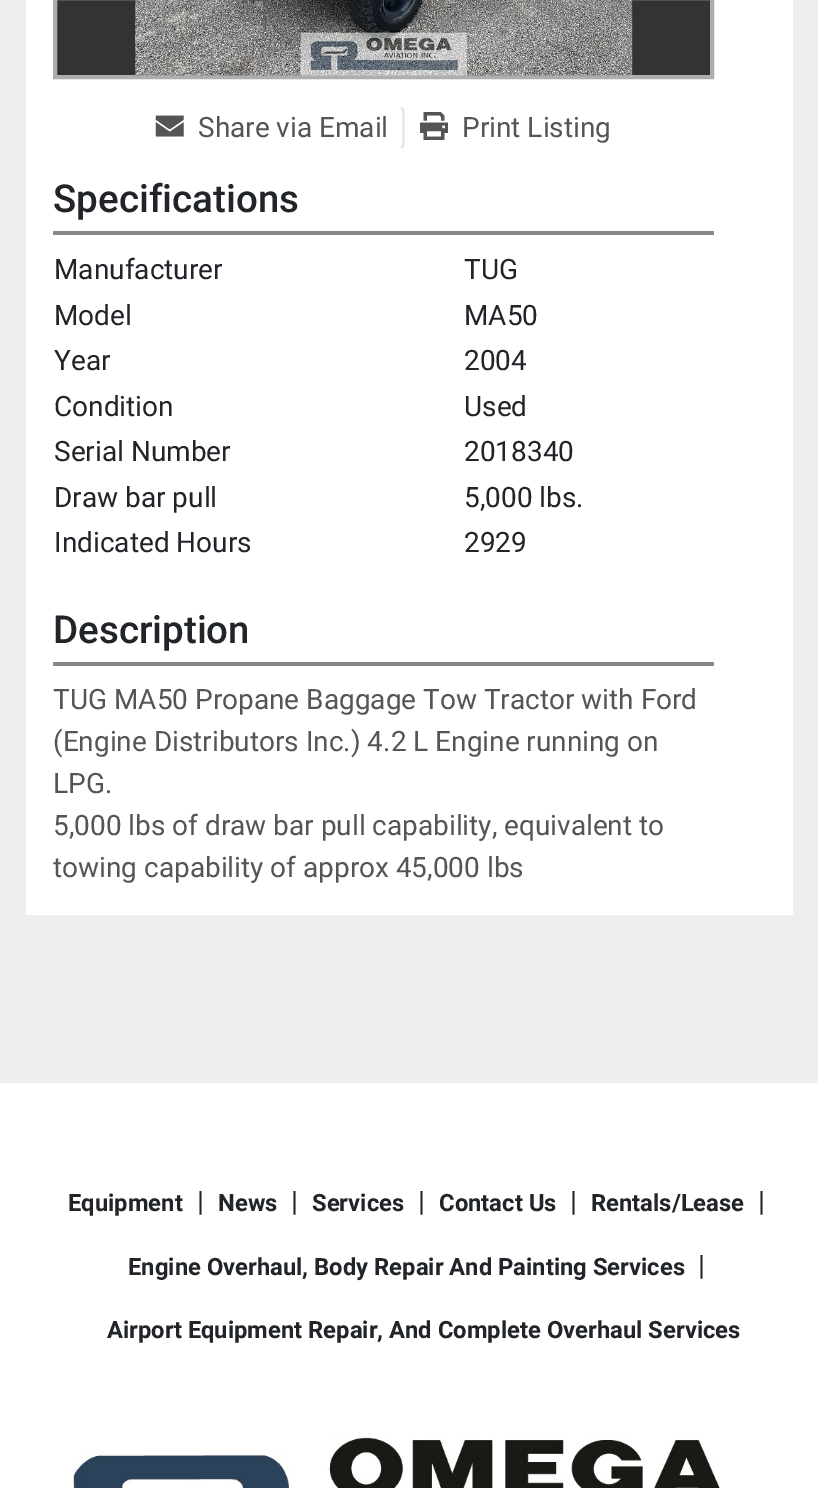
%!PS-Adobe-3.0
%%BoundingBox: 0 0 818 1488
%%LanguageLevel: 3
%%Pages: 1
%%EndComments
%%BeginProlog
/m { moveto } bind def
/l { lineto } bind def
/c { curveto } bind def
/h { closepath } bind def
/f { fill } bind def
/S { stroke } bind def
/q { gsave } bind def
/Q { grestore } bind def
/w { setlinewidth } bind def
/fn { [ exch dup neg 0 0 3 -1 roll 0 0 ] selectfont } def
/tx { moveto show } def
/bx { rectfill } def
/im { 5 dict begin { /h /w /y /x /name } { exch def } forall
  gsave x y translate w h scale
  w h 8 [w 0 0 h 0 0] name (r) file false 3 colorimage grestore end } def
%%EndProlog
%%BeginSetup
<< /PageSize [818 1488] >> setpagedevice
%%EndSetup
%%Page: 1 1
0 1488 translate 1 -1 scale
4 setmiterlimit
0.933 setgray
0 0 818 1488 bx
1 setgray
26 0 767 915 bx
0.2 setgray
55 -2 m 712 -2 l 712 77 l 55 77 l h q f Q
0.682 setgray
4 w
S
(image0.raw) 135 0 498 76 im
0.871 0.886 0.902 setrgbcolor
1.8 w
401.5 107.5 m 402.5 109 403.5 110.5 403.5 112 c 403.5 143.5 l 403.5 145 402.5 146.5 401.5 148 c S
(image1.raw) 155 115 29 22 im
/Roboto-Regular 28 fn
0.333 setgray
(Share via Email) 198 137 tx
(image2.raw) 420 112 28 28 im
(Print Listing) 462 137 tx
0.533 setgray
53 231 661 4 bx
/Roboto-Medium 38.5 fn
0.129 0.145 0.161 setrgbcolor
(Specifications) 53 212 tx
/Roboto-Regular 28 fn
(Manufacturer) 54 279 tx
(TUG) 464 279 tx
(Model) 54 325 tx
(MA50) 464 325 tx
(Year) 54 370 tx
(2004) 464 370 tx
(Condition) 54 416 tx
(Used) 464 416 tx
(Serial Number) 54 461 tx
(2018340) 464 461 tx
(Draw bar pull) 54 507 tx
(5,000 lbs.) 464 507 tx
(Indicated Hours) 54 552 tx
(2929) 464 552 tx
0.533 setgray
53 662 661 4 bx
/Roboto-Medium 38.5 fn
0.129 0.145 0.161 setrgbcolor
(Description) 53 643 tx
/Roboto-Regular 28 fn
0.333 setgray
(TUG MA50 Propane Baggage Tow Tractor with Ford) 53 709 tx
(\(Engine Distributors Inc.\) 4.2 L Engine running on) 53 751 tx
(LPG.) 53 793 tx
(5,000 lbs of draw bar pull capability, equivalent to) 53 835 tx
(towing capability of approx 45,000 lbs) 53 877 tx
1 setgray
0 1083 818 405 bx
/Roboto-Bold 23.8 fn
0.129 0.145 0.161 setrgbcolor
(Equipment) 68 1211 tx
/Roboto-Regular 28 fn
(|) 197 1211 tx
/Roboto-Bold 23.8 fn
(News) 218 1211 tx
/Roboto-Regular 28 fn
(|) 291 1211 tx
/Roboto-Bold 23.8 fn
(Services) 312 1211 tx
/Roboto-Regular 28 fn
(|) 418 1211 tx
/Roboto-Bold 23.8 fn
(Contact Us) 439 1211 tx
/Roboto-Regular 28 fn
(|) 570 1211 tx
/Roboto-Bold 23.8 fn
(Rentals/Lease) 591 1211 tx
/Roboto-Regular 28 fn
(|) 758 1211 tx
/Roboto-Bold 23.8 fn
(Engine Overhaul, Body Repair And Painting Services) 128 1275 tx
/Roboto-Regular 28 fn
(|) 698 1275 tx
/Roboto-Bold 23.8 fn
(Airport Equipment Repair, And Complete Overhaul Services) 107 1338 tx
(image3.raw) 73 1437 647 51 im
showpage
%%EOF
